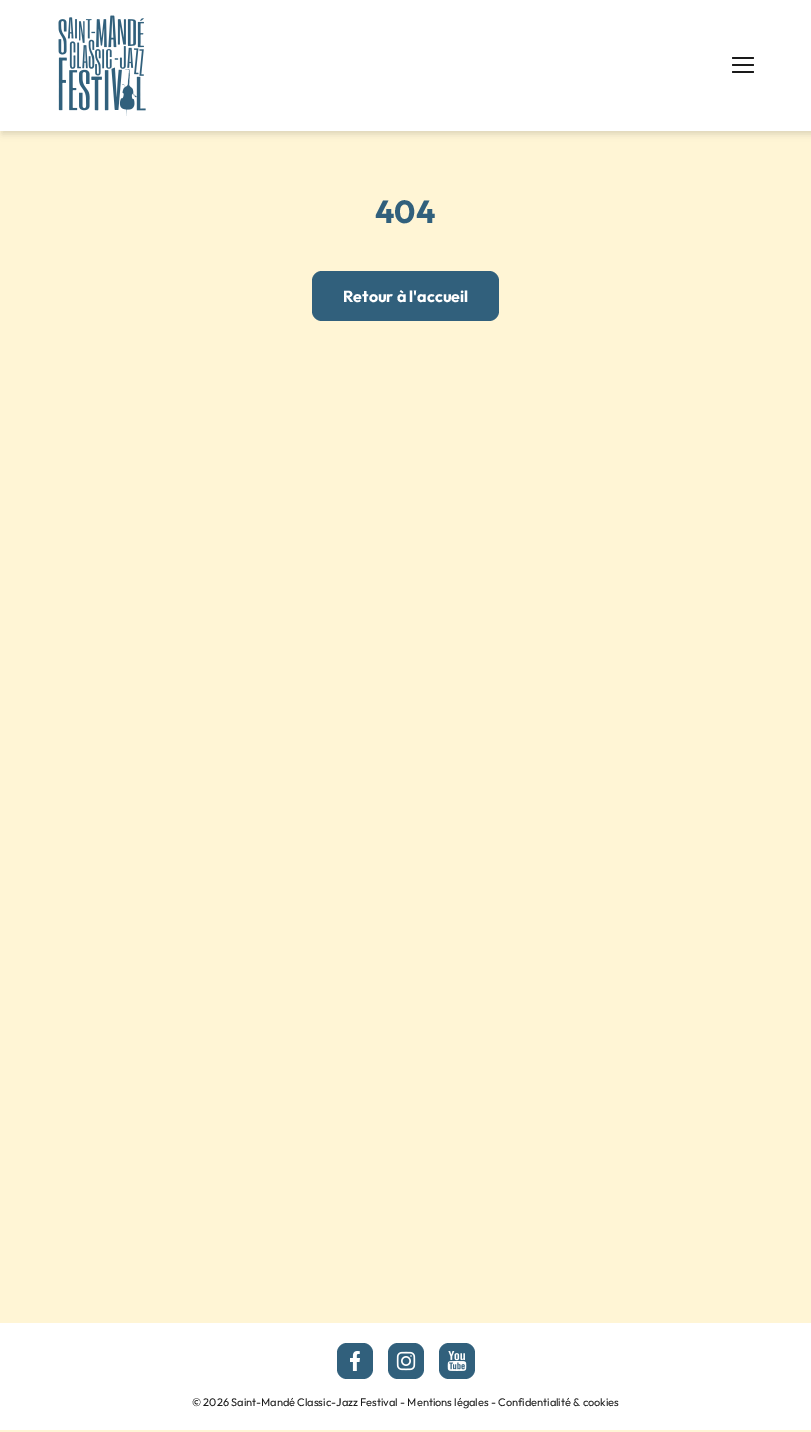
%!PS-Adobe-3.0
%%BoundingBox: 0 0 811 1432
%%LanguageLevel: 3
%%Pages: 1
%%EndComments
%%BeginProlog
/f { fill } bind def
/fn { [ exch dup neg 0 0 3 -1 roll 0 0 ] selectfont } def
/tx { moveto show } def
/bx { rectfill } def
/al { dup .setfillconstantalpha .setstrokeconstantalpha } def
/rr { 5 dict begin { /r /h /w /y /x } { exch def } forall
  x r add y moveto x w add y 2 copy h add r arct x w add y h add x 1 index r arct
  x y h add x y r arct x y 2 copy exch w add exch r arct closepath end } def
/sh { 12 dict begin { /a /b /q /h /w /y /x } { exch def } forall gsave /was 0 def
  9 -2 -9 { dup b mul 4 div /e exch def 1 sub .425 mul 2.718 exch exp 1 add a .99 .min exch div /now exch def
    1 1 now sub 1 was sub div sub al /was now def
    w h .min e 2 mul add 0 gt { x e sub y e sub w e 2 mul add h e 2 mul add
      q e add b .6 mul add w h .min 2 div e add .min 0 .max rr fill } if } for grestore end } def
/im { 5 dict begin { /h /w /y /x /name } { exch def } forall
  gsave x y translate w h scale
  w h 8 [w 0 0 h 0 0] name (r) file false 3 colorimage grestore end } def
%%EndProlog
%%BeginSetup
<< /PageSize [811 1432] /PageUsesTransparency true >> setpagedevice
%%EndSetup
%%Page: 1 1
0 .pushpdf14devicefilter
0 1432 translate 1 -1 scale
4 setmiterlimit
1 0.961 0.835 setrgbcolor
0 0 811 1432 bx
0 setgray
2 3 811 131 0 3.5 0.14 sh
1 setgray
0 0 811 131 bx
(image0.raw) 58 15 88 101 im
0.102 setgray
732 57 22 2 1 rr f
732 64 22 2 1 rr f
732 71 22 2 1 rr f
/Outfit-Bold 32 fn
0.192 0.376 0.486 setrgbcolor
(404) 375 223 tx
312 271 187 50 10 rr f
/Outfit-Bold 16 fn
1 setgray
(Retour à l'accueil) 343 302 tx
0 1323 811 107 bx
0.192 0.376 0.486 setrgbcolor
337 1343 36 36 10 rr f
(image1.raw) 350 1351 10 20 im
388 1343 36 36 10 rr f
(image2.raw) 396 1351 20 20 im
439 1343 36 36 10 rr f
(image3.raw) 447 1351 20 20 im
/Outfit-Regular 11 fn
0.102 setgray
(© 2026 Saint-Mandé Classic-Jazz Festival - Mentions légales - Confidentialité & cookies) 192 1406 tx
.poppdf14devicefilter showpage
%%EOF
